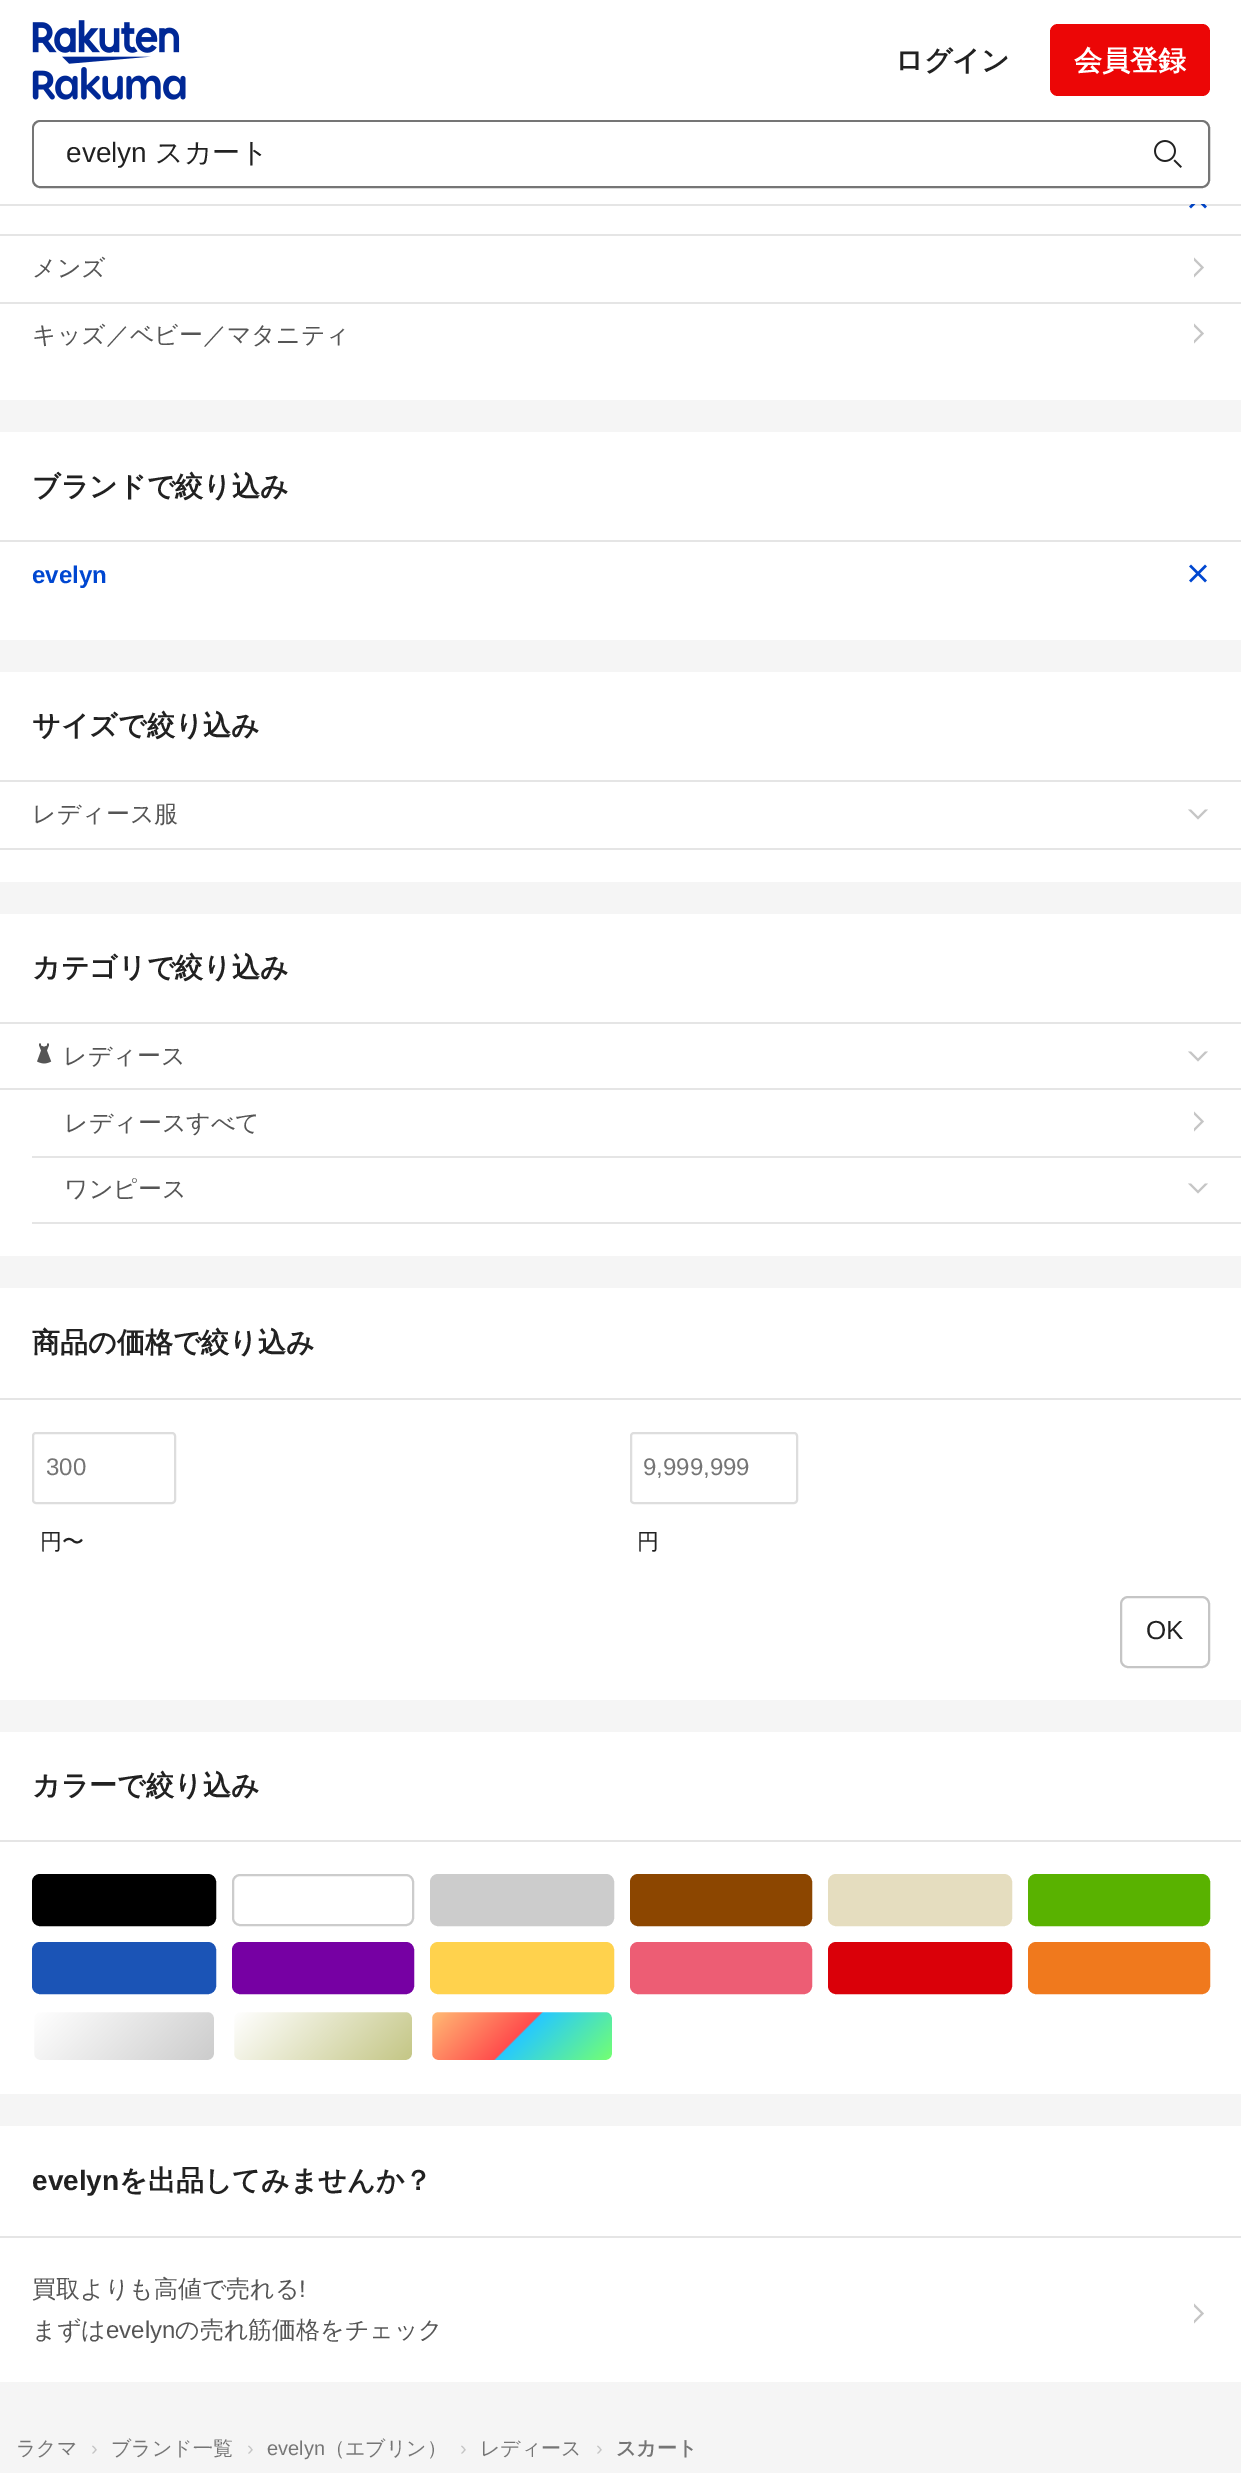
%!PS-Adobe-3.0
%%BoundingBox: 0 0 1241 2473
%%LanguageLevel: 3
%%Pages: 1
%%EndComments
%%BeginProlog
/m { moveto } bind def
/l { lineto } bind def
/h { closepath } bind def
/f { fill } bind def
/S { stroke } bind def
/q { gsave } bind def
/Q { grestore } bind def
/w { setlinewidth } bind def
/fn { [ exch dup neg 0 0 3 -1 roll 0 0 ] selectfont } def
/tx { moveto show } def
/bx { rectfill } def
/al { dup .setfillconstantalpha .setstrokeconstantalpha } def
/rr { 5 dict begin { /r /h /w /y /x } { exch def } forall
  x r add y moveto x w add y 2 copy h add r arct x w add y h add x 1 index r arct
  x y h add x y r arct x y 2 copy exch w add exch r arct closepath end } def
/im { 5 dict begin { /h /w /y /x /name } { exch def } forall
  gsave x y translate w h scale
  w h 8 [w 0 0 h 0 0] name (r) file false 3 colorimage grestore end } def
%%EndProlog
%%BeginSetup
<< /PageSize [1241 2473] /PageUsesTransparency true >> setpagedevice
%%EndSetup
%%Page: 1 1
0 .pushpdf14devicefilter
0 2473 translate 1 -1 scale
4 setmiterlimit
0.961 setgray
0 0 1241 2473 bx
1 setgray
0 0 1241 400 bx
(image2.raw) 1189 204 18 5 im
0.1 al
0 setgray
0 204 1241 2 bx
1 al
(image0.raw) 32 20 154 80 im
/WenQuanYiZenHei-Bold 28 fn
0.129 setgray
(ログイン) 895 70 tx
0.925 0.024 0.024 setrgbcolor
1050 24 160 72 8 rr f
1 setgray
(会員登録) 1074 70 tx
0.459 setgray
2 w
33 121 1176 66 7 rr S
1 setgray
34 122 1174 64 8 rr f
/LiberationSans-Regular 28 fn
0.129 setgray
(evelyn) 66 162 tx
/WenQuanYiZenHei-Medium 28 fn
(スカート) 155 162 tx
(image1.raw) 1154 140 28 28 im
0.898 setgray
0 234 1241 2 bx
0 302 1241 2 bx
/WenQuanYiZenHei-Medium 24 fn
0.333 setgray
(メンズ) 32 276 tx
0.773 setgray
1204 267.5 m 1194 277.5 l 1194 274.5 l 1201 267.5 l 1194 260.5 l 1194 257.5 l h f
0.333 setgray
(キッズ／ベビー／マタニティ) 32 343 tx
0.773 setgray
1204 333.5 m 1194 343.5 l 1194 340.5 l 1201 333.5 l 1194 326.5 l 1194 323.5 l h f
1 setgray
0 432 1241 208 bx
0.898 setgray
0 540 1241 2 bx
/WenQuanYiZenHei-Bold 28 fn
0.129 setgray
(ブランドで絞り込み) 32 496 tx
/LiberationSans-Bold 24 fn
0 0.278 0.82 setrgbcolor
(evelyn) 32 583 tx
(image3.raw) 1189 564 18 19 im
1 setgray
0 672 1241 210 bx
0.898 setgray
0 780 1241 2 bx
/WenQuanYiZenHei-Bold 28 fn
0.129 setgray
(サイズで絞り込み) 32 735 tx
0.898 setgray
0 848 1241 2 bx
/WenQuanYiZenHei-Medium 24 fn
0.333 setgray
(レディース服) 32 822 tx
0.773 setgray
1198 819.5 m 1188 809.5 l 1191 809.5 l 1198 816.5 l 1205 809.5 l 1208 809.5 l h f
1 setgray
0 914 1241 342 bx
0.898 setgray
0 1022 1241 2 bx
/WenQuanYiZenHei-Bold 28 fn
0.129 setgray
(カテゴリで絞り込み) 32 977 tx
0.898 setgray
0 1088 1241 2 bx
(image4.raw) 37 1043 15 21 im
/WenQuanYiZenHei-Medium 24 fn
0.333 setgray
(レディース) 63 1064 tx
0.773 setgray
1198 1061.5 m 1188 1051.5 l 1191 1051.5 l 1198 1058.5 l 1205 1051.5 l 1208 1051.5 l h f
0.898 setgray
32 1156 1209 2 bx
0.333 setgray
(レディースすべて) 64 1131 tx
0.773 setgray
1204 1121.5 m 1194 1131.5 l 1194 1128.5 l 1201 1121.5 l 1194 1114.5 l 1194 1111.5 l h f
0.898 setgray
32 1222 1209 2 bx
0.333 setgray
(ワンピース) 64 1197 tx
0.773 setgray
1198 1193.5 m 1188 1183.5 l 1191 1183.5 l 1198 1190.5 l 1205 1183.5 l 1208 1183.5 l h f
1 setgray
0 1288 1241 412 bx
0.898 setgray
0 1398 1241 2 bx
/WenQuanYiZenHei-Bold 28 fn
0.129 setgray
(商品の価格で絞り込み) 32 1352 tx
0.867 setgray
33 1433 142 70 3 rr S
/LiberationSans-Regular 24 fn
0.459 setgray
(300) 46 1475 tx
/WenQuanYiZenHei-Medium 22 fn
0.129 setgray
(円〜) 40 1549 tx
0.867 setgray
631 1433 166 70 3 rr S
/LiberationSans-Regular 24 fn
0.459 setgray
(9,999,999) 643 1475 tx
/WenQuanYiZenHei-Medium 22 fn
0.129 setgray
(円) 637 1549 tx
0.773 setgray
1121 1597 88 70 7 rr S
/LiberationSans-Regular 26 fn
0.129 setgray
(OK) 1146 1639 tx
1 setgray
0 1732 1241 362 bx
0.898 setgray
0 1840 1241 2 bx
/WenQuanYiZenHei-Bold 28 fn
0.129 setgray
(カラーで絞り込み) 32 1795 tx
0 setgray
33 1875 182 50 7 rr q f Q
S
0.8 setgray
233 1875 180 50 7 rr S
431 1875 182 50 7 rr q f Q
S
0.549 0.275 0 setrgbcolor
631 1875 180 50 7 rr q f Q
S
0.898 0.867 0.749 setrgbcolor
829 1875 182 50 7 rr q f Q
S
0.349 0.698 0 setrgbcolor
1029 1875 180 50 7 rr q f Q
S
0.106 0.329 0.714 setrgbcolor
33 1943 182 50 7 rr q f Q
S
0.463 0 0.639 setrgbcolor
233 1943 180 50 7 rr q f Q
S
1 0.824 0.302 setrgbcolor
431 1943 182 50 7 rr q f Q
S
0.929 0.365 0.455 setrgbcolor
631 1943 180 50 7 rr q f Q
S
0.855 0 0.035 setrgbcolor
829 1943 182 50 7 rr q f Q
S
0.941 0.475 0.114 setrgbcolor
1029 1943 180 50 7 rr q f Q
S
q
32 2010 184 52 8 rr clip newpath
q 34 2012 m 214 2012 l 214 2060 l 34 2060 l h clip newpath
<< /ShadingType 2 /ColorSpace /DeviceRGB /Coords [67 1979 181 2093] /Extend [true true] /Function << /FunctionType 2 /Domain [0 1] /C0 [1 1 1] /C1 [0.8 0.8 0.8] /N 1 >> >> shfill Q
Q
1 setgray
33 2011 182 50 7 rr S
q
232 2010 182 52 8 rr clip newpath
q 234 2012 m 412 2012 l 412 2060 l 234 2060 l h clip newpath
<< /ShadingType 2 /ColorSpace /DeviceRGB /Coords [267 1980 380 2093] /Extend [true true] /Function << /FunctionType 2 /Domain [0 1] /C0 [1 1 1] /C1 [0.769 0.776 0.518] /N 1 >> >> shfill Q
Q
233 2011 180 50 7 rr S
q
430 2010 184 52 8 rr clip newpath
q 432 2012 m 612 2012 l 612 2060 l 432 2060 l h clip newpath
<< /ShadingType 2 /ColorSpace /DeviceRGB /Coords [465 1979 579 2093] /Extend [true true] /Function << /FunctionType 3 /Domain [0 1] /Functions [<< /FunctionType 2 /Domain [0 1] /C0 [1 0.725 0.451] /C1 [1 0.725 0.451] /N 1 >> << /FunctionType 2 /Domain [0 1] /C0 [1 0.725 0.451] /C1 [1 0.302 0.302] /N 1 >> << /FunctionType 2 /Domain [0 1] /C0 [1 0.302 0.302] /C1 [0.149 0.788 1] /N 1 >> << /FunctionType 2 /Domain [0 1] /C0 [0.149 0.788 1] /C1 [0.451 1 0.451] /N 1 >> << /FunctionType 2 /Domain [0 1] /C0 [0.451 1 0.451] /C1 [0.451 1 0.451] /N 1 >>] /Bounds [0.01 0.48 0.49 0.99] /Encode [0 1 0 1 0 1 0 1 0 1] >> >> shfill Q
Q
431 2011 182 50 7 rr S
0 2126 1241 256 bx
0.898 setgray
0 2236 1241 2 bx
/LiberationSans-Bold 28 fn
0.129 setgray
(evelyn) 32 2190 tx
/WenQuanYiZenHei-Bold 28 fn
(を出品してみませんか？) 119 2190 tx
/WenQuanYiZenHei-Medium 24 fn
0.333 setgray
(買取よりも高値で売れる) 32 2297 tx
/LiberationSans-Regular 24 fn
(!) 299 2297 tx
0.773 setgray
1204 2313.5 m 1194 2323.5 l 1194 2320.5 l 1201 2313.5 l 1194 2306.5 l 1194 2303.5 l h f
/WenQuanYiZenHei-Medium 24 fn
0.333 setgray
(まずは) 32 2338 tx
/LiberationSans-Regular 24 fn
(evelyn) 106 2338 tx
/WenQuanYiZenHei-Medium 24 fn
(の売れ筋価格をチェック) 175 2338 tx
/WenQuanYiZenHei-Medium 20 fn
0.459 setgray
(ラクマ) 16 2455 tx
/LiberationSans-Regular 20 fn
0.773 setgray
(›) 91 2455 tx
/WenQuanYiZenHei-Medium 20 fn
0.459 setgray
(ブランド一覧) 111 2455 tx
/LiberationSans-Regular 20 fn
0.773 setgray
(›) 247 2455 tx
0.459 setgray
(evelyn) 267 2455 tx
/WenQuanYiZenHei-Medium 20 fn
(（エブリン）) 325 2455 tx
/LiberationSans-Regular 20 fn
0.773 setgray
(›) 460 2455 tx
/WenQuanYiZenHei-Medium 20 fn
0.459 setgray
(レディース) 480 2455 tx
/LiberationSans-Regular 20 fn
0.773 setgray
(›) 596 2455 tx
/WenQuanYiZenHei-Bold 20 fn
0.459 setgray
(スカート) 616 2455 tx
.poppdf14devicefilter showpage
%%EOF
